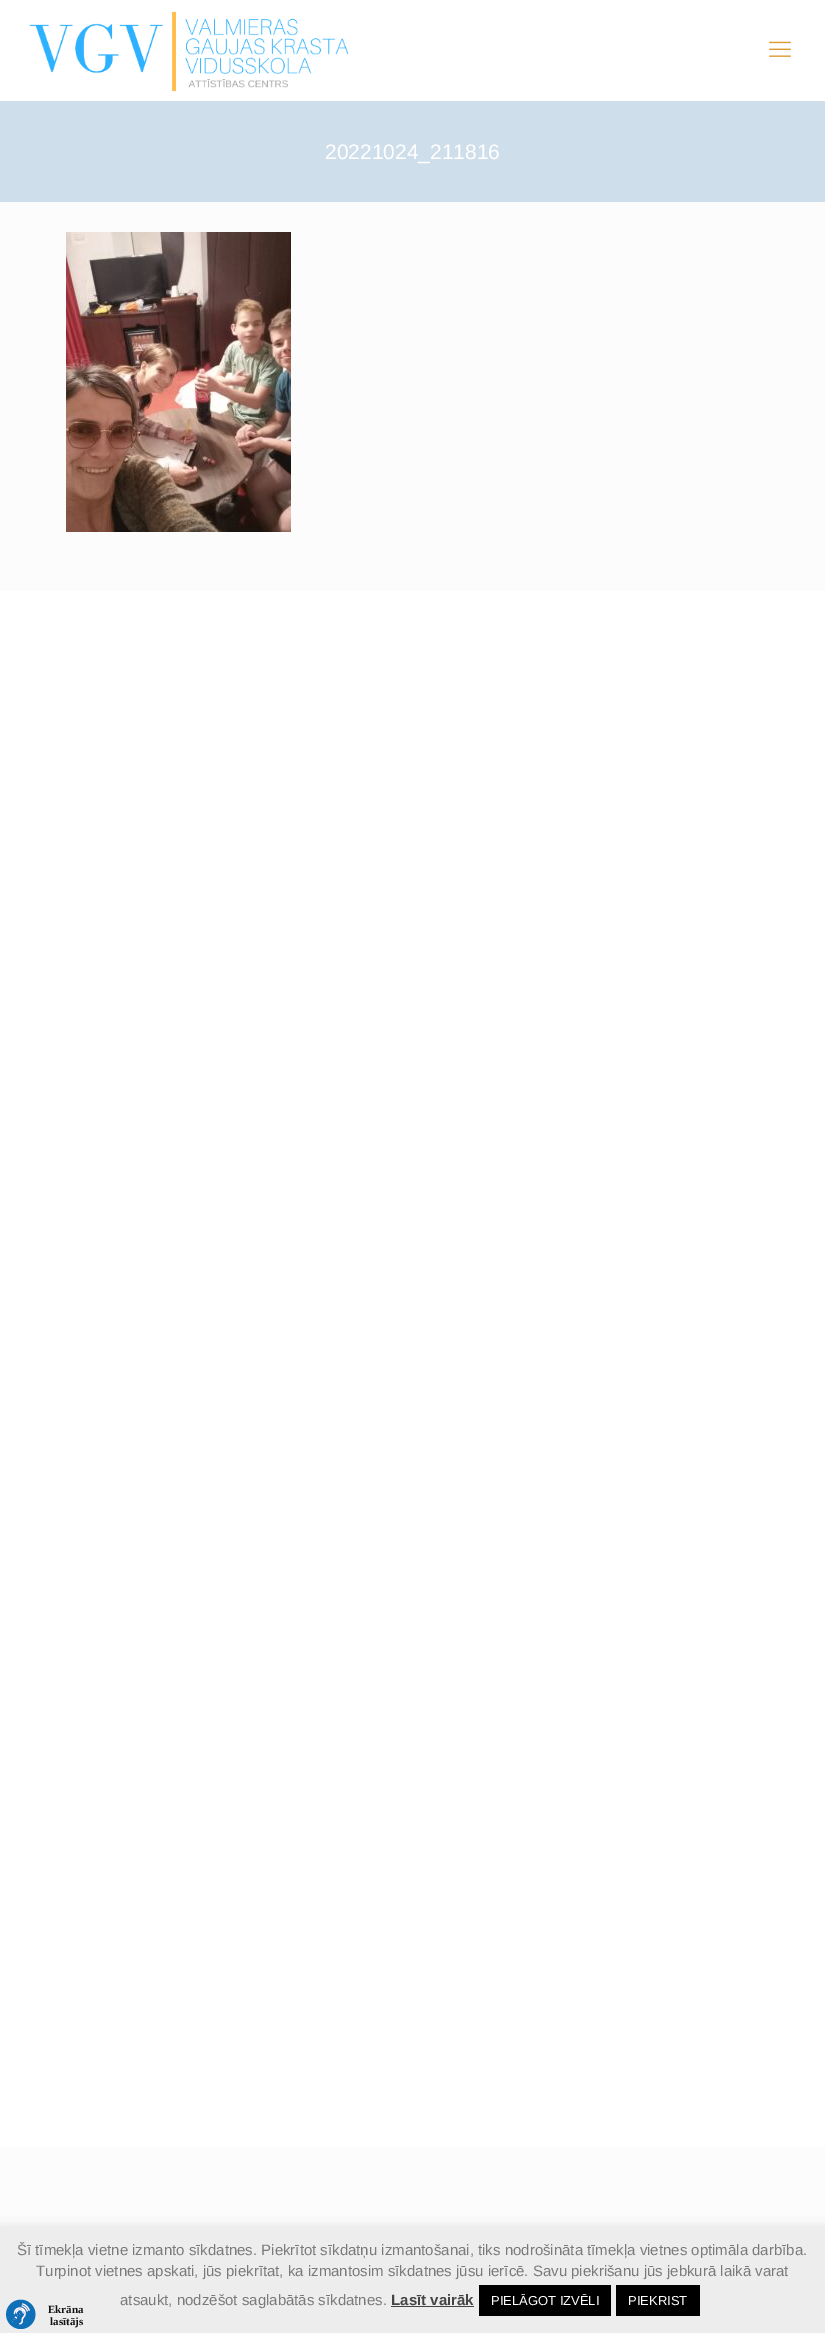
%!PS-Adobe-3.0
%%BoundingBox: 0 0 825 2333
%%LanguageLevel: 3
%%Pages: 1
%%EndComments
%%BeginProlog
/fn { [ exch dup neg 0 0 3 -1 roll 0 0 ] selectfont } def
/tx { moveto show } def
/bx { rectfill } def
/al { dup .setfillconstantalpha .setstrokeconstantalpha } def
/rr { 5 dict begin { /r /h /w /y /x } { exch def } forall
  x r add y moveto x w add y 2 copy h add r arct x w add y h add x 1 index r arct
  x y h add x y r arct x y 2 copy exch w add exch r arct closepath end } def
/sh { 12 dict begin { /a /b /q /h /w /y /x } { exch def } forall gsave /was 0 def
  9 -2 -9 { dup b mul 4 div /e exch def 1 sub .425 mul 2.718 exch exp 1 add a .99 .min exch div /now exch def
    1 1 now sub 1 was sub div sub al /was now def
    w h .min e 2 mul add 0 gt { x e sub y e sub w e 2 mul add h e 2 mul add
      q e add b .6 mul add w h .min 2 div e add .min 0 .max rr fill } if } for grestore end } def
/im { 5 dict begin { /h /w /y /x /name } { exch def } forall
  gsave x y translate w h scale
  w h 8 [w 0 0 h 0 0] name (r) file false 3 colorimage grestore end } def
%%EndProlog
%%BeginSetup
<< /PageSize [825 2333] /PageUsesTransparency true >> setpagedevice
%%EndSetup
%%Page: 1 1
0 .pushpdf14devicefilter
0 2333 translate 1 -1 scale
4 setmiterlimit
1 setgray
0 0 825 2333 bx
0.988 setgray
0 202 825 389 bx
(image0.raw) 29 11 320 81 im
(image1.raw) 769 41 22 16 im
0.812 0.871 0.922 setrgbcolor
0 101 825 101 bx
/LiberationSans-Regular 21 fn
1 setgray
(20221024_211816) 325 159 tx
(image2.raw) 66 232 225 300 im
0.988 setgray
0 2147 825 80 bx
0.675 0.671 0.671 setrgbcolor
0 2226 825 106 0 5 0.3 sh
0.929 setgray
0 2227 825 106 bx
/LiberationSans-Regular 15 fn
0.478 setgray
(Šī tīmekļa vietne izmanto sīkdatnes. Piekrītot sīkdatņu izmantošanai, tiks nodrošināta tīmekļa vietnes optimāla darbība.) 17 2255 tx
(Turpinot vietnes apskati, jūs piekrītat, ka izmantosim sīkdatnes jūsu ierīcē. Savu piekrišanu jūs jebkurā laikā varat) 36 2276 tx
(atsaukt, nodzēšot saglabātās sīkdatnes.) 120 2305 tx
/LiberationSans-Bold 15 fn
0.267 setgray
(Lasīt vairāk) 391 2305 tx
391 2306 83 1 bx
0 setgray
479 2285 132 31 bx
/LiberationSans-Regular 13 fn
1 setgray
(PIELĀGOT IZVĒLI) 491 2305 tx
0 setgray
616 2285 84 31 bx
1 setgray
(PIEKRIST) 628 2305 tx
(image3.raw) 6 2299 30 30 im
/LiberationSerif-Bold 11 fn
0.067 setgray
(Ekrāna) 48 2313 tx
(lasītājs) 50 2325 tx
.poppdf14devicefilter showpage
%%EOF
